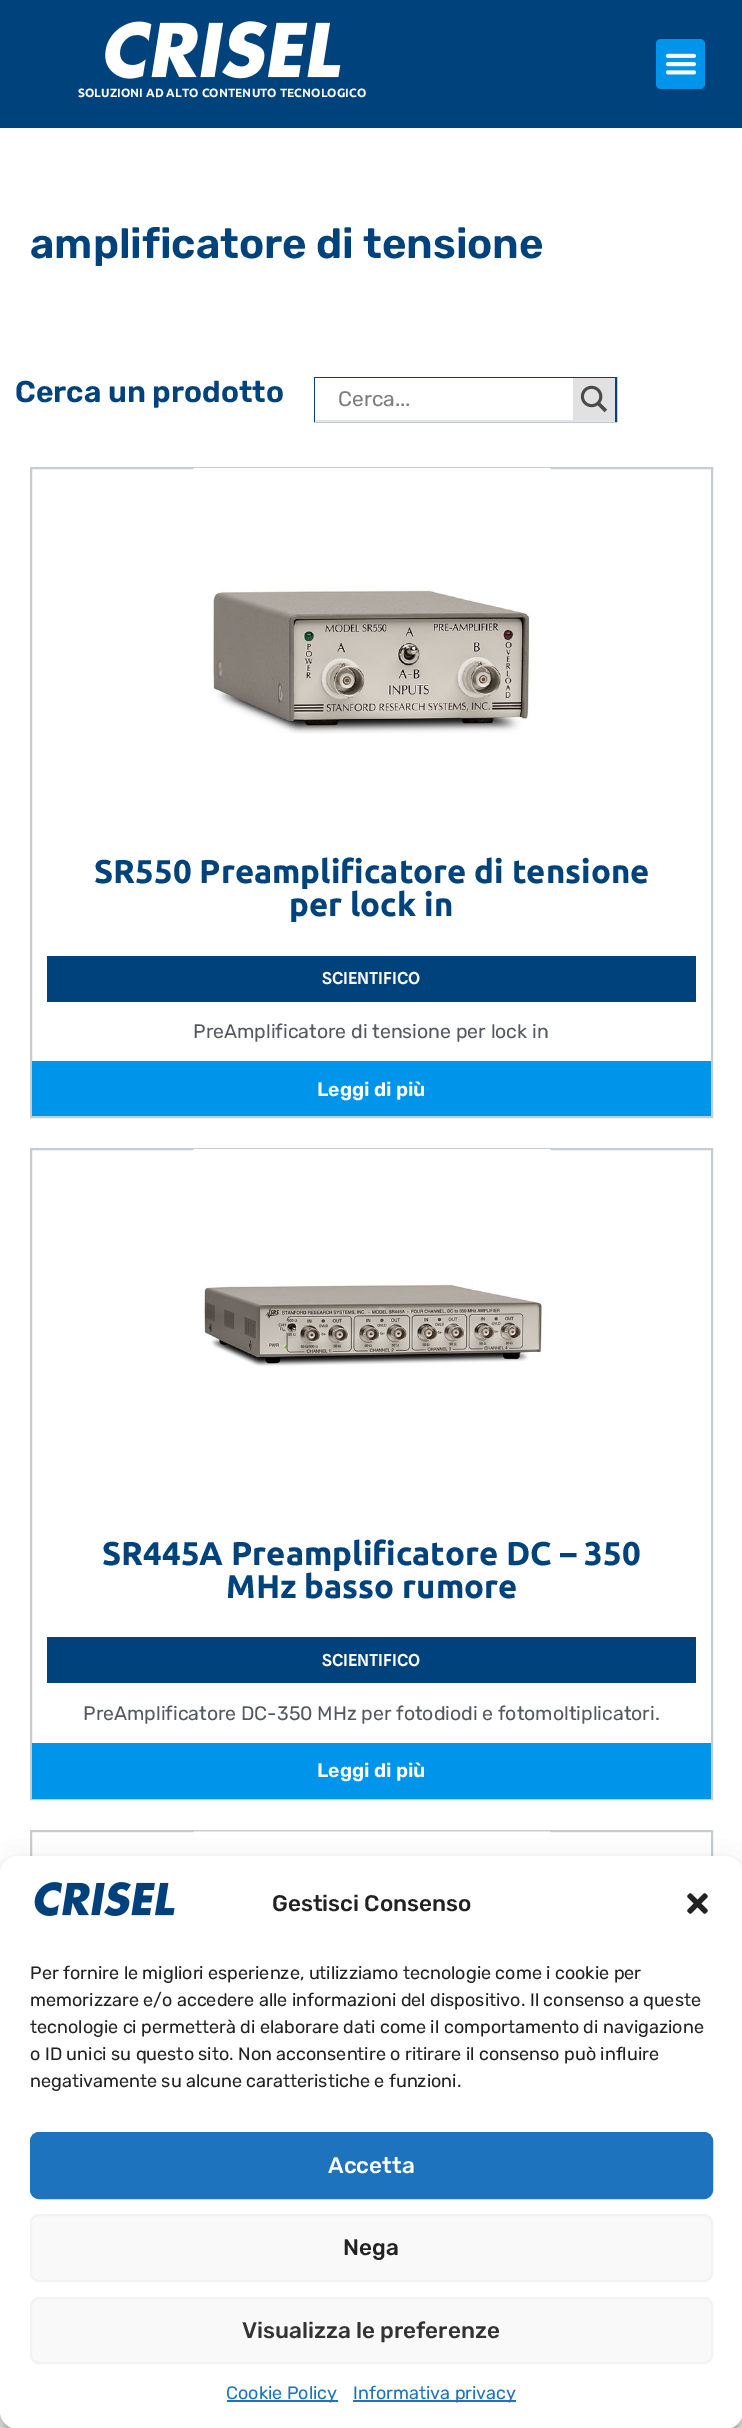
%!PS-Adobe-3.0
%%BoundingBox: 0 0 742 2428
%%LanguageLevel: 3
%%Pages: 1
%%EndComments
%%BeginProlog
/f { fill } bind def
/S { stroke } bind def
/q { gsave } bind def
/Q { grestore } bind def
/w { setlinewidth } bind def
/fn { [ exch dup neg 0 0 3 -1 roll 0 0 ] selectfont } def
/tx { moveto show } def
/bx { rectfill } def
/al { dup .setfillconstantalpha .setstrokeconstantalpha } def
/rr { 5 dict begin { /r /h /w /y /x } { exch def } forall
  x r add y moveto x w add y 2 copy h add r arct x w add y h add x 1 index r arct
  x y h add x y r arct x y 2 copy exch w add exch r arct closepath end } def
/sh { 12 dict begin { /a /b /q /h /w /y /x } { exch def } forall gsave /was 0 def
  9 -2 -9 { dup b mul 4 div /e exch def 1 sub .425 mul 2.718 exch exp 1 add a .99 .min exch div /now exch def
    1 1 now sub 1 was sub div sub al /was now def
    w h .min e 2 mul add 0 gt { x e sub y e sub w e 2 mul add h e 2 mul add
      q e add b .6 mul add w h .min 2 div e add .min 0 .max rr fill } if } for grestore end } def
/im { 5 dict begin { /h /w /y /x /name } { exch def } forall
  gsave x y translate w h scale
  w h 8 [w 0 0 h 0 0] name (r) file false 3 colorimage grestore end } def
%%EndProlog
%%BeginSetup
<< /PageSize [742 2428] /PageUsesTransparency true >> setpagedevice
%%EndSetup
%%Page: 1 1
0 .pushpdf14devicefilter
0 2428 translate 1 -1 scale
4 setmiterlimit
1 setgray
0 0 742 2428 bx
0 0.259 0.482 setrgbcolor
0 0 742 128 bx
0 0.584 0.922 setrgbcolor
656 39 49 50 5 rr f
(image0.raw) 665 53 32 22 im
(image1.raw) 105 21 236 58 im
/Ubuntu-Bold 12 fn
0.976 setgray
(SOLUZIONI AD ALTO CONTENUTO TECNOLOGICO) 78 97 tx
/Rubik-SemiBold 42 fn
0 0.259 0.482 setrgbcolor
(amplificatore di tensione) 30 258 tx
/Rubik-SemiBold 30 fn
(Cerca un prodotto) 15 402 tx
2 w
315 378 301 43 rectstroke
0.894 setgray
315 420 300 2 bx
1 setgray
315 378 258 42 bx
/Rubik-Regular 21 fn
0.49 setgray
(Cerca...) 338 406 tx
0.882 setgray
573 378 42 42 bx
(image2.raw) 580 385 28 28 im
0.776 0.804 0.824 setrgbcolor
31 468 681 649 rectstroke
(image3.raw) 193 468 358 266 im
/Ubuntu-Bold 33 fn
0 0.259 0.482 setrgbcolor
(SR550 Preamplificatore di tensione) 94 883 tx
(per lock in) 289 916 tx
47 956 649 46 bx
/SplineSans-SemiBold 16.5 fn
0.976 setgray
(SCIENTIFICO) 322 984 tx
/Rubik-Regular 19.5 fn
0.329 0.349 0.373 setrgbcolor
(PreAmplificatore di tensione per lock in) 193 1038 tx
0 0.584 0.922 setrgbcolor
32 1061 679 55 bx
/Rubik-SemiBold 19.5 fn
0.976 setgray
(Leggi di più) 317 1096 tx
0.776 0.804 0.824 setrgbcolor
31 1149 681 650 rectstroke
(image4.raw) 193 1149 358 218 im
/Ubuntu-Bold 33 fn
0 0.259 0.482 setrgbcolor
(SR445A Preamplificatore DC – 350) 102 1565 tx
(MHz basso rumore) 226 1598 tx
47 1637 649 46 bx
/SplineSans-SemiBold 16.5 fn
0.976 setgray
(SCIENTIFICO) 322 1666 tx
/Rubik-Regular 19.5 fn
0.329 0.349 0.373 setrgbcolor
(PreAmplificatore DC-350 MHz per fotodiodi e fotomoltiplicatori.) 83 1720 tx
0 0.584 0.922 setrgbcolor
32 1743 679 56 bx
/Rubik-SemiBold 19.5 fn
0.976 setgray
(Leggi di più) 317 1777 tx
0.776 0.804 0.824 setrgbcolor
31 1831 681 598 rectstroke
(image5.raw) 193 1831 358 25 im
0 setgray
0 1865 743 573 18 4.5 0.23 sh
0 1871 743 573 18 15 0.19 sh
1 setgray
0 1856 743 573 18 rr f
(image6.raw) 34 1882 141 34 im
/Rubik-Medium 22.5 fn
0.133 setgray
(Gestisci Consenso) 272 1911 tx
(image7.raw) 687 1893 21 21 im
/Rubik-Regular 18 fn
(Per fornire le migliori esperienze, utilizziamo tecnologie come i cookie per) 30 1979 tx
(memorizzare e/o accedere alle informazioni del dispositivo. Il consenso a queste) 30 2006 tx
(tecnologie ci permetterà di elaborare dati come il comportamento di navigazione) 30 2033 tx
(o ID unici su questo sito. Non acconsentire o ritirare il consenso può influire) 30 2060 tx
(negativamente su alcune caratteristiche e funzioni.) 30 2087 tx
0.118 0.451 0.745 setrgbcolor
31 2133 681 65 8 rr q f Q
S
/Rubik-Medium 22.5 fn
1 setgray
(Accetta) 328 2173 tx
0.976 setgray
31 2215 681 66 8 rr q f Q
0.949 setgray
S
0.133 setgray
(Nega) 343 2255 tx
0.976 setgray
31 2298 681 65 8 rr q f Q
0.949 setgray
S
0.2 setgray
(Visualizza le preferenze) 242 2338 tx
0.118 0.451 0.745 setrgbcolor
227 2400 111 2 bx
/Rubik-Regular 18 fn
(Cookie Policy) 226 2399 tx
353 2400 163 2 bx
(Informativa privacy) 353 2399 tx
.poppdf14devicefilter showpage
%%EOF
